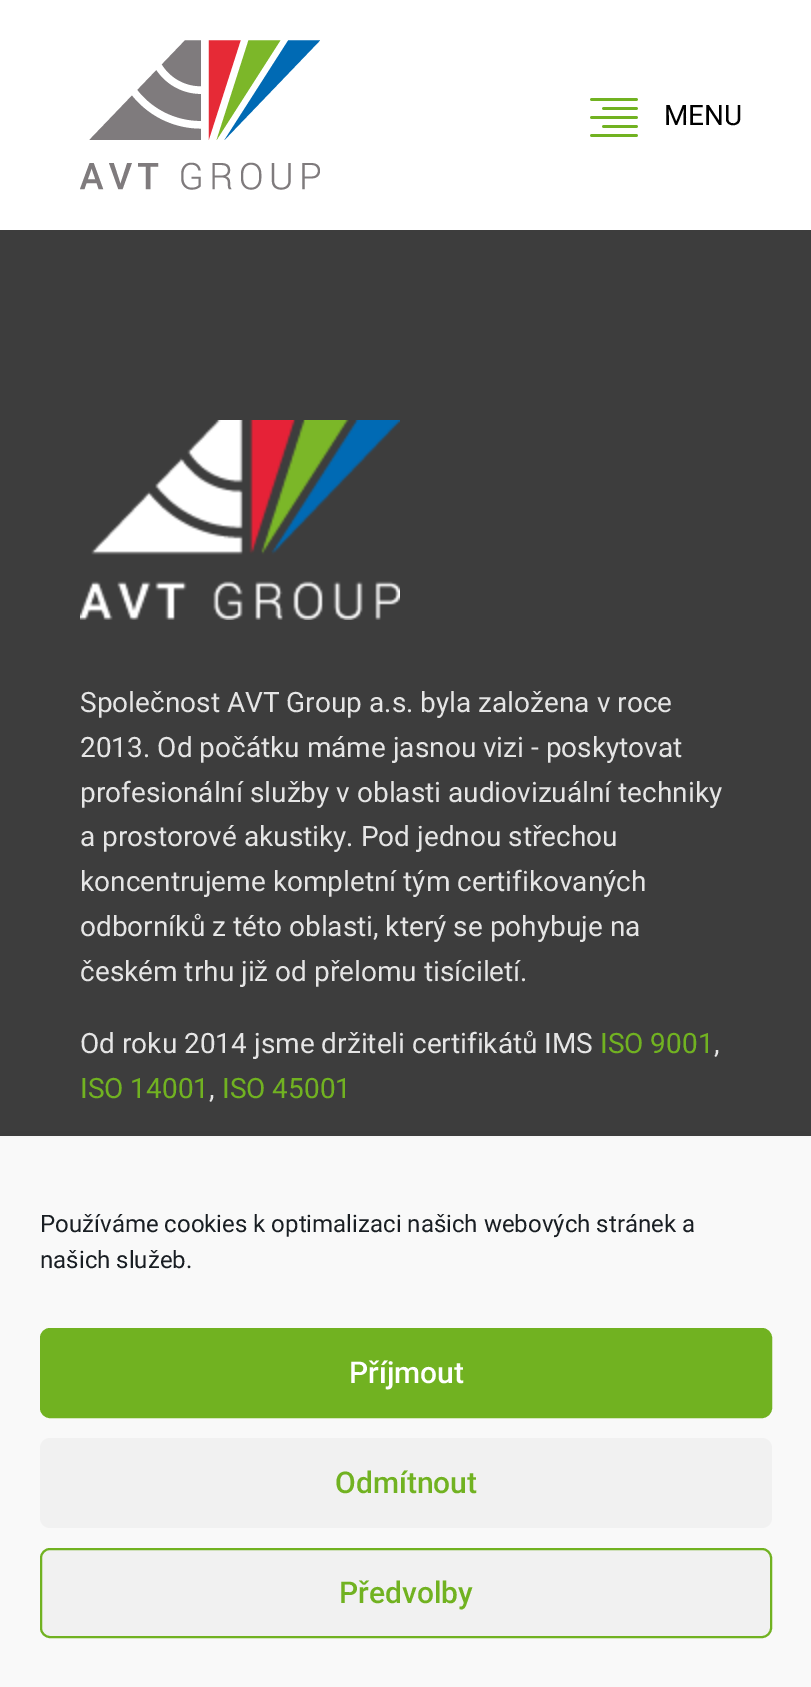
%!PS-Adobe-3.0
%%BoundingBox: 0 0 811 1687
%%LanguageLevel: 3
%%Pages: 1
%%EndComments
%%BeginProlog
/f { fill } bind def
/S { stroke } bind def
/q { gsave } bind def
/Q { grestore } bind def
/w { setlinewidth } bind def
/fn { [ exch dup neg 0 0 3 -1 roll 0 0 ] selectfont } def
/tx { moveto show } def
/bx { rectfill } def
/al { dup .setfillconstantalpha .setstrokeconstantalpha } def
/rr { 5 dict begin { /r /h /w /y /x } { exch def } forall
  x r add y moveto x w add y 2 copy h add r arct x w add y h add x 1 index r arct
  x y h add x y r arct x y 2 copy exch w add exch r arct closepath end } def
/sh { 12 dict begin { /a /b /q /h /w /y /x } { exch def } forall gsave /was 0 def
  9 -2 -9 { dup b mul 4 div /e exch def 1 sub .425 mul 2.718 exch exp 1 add a .99 .min exch div /now exch def
    1 1 now sub 1 was sub div sub al /was now def
    w h .min e 2 mul add 0 gt { x e sub y e sub w e 2 mul add h e 2 mul add
      q e add b .6 mul add w h .min 2 div e add .min 0 .max rr fill } if } for grestore end } def
/im { 5 dict begin { /h /w /y /x /name } { exch def } forall
  gsave x y translate w h scale
  w h 8 [w 0 0 h 0 0] name (r) file false 3 colorimage grestore end } def
%%EndProlog
%%BeginSetup
<< /PageSize [811 1687] /PageUsesTransparency true >> setpagedevice
%%EndSetup
%%Page: 1 1
0 .pushpdf14devicefilter
0 1687 translate 1 -1 scale
4 setmiterlimit
1 setgray
0 0 811 1687 bx
(image0.raw) 80 40 240 150 im
(image1.raw) 590 98 48 39 im
/Roboto-Regular 28 fn
0 setgray
(MENU) 664 125 tx
0.239 setgray
0 230 811 906 bx
(image2.raw) 80 420 320 200 im
0.898 setgray
(Společnost AVT Group a.s. byla založena v roce) 80 712 tx
(2013. Od počátku máme jasnou vizi - poskytovat) 80 757 tx
(profesionální služby v oblasti audiovizuální techniky) 80 802 tx
(a prostorové akustiky. Pod jednou střechou) 80 846 tx
(koncentrujeme kompletní tým certifikovaných) 80 891 tx
(odborníků z této oblasti, který se pohybuje na) 80 936 tx
(českém trhu již od přelomu tisíciletí.) 80 981 tx
(Od roku 2014 jsme držiteli certifikátů IMS) 80 1053 tx
0.443 0.698 0.129 setrgbcolor
(ISO 9001) 600 1053 tx
0.898 setgray
(,) 714 1053 tx
0.443 0.698 0.129 setrgbcolor
(ISO 14001) 80 1098 tx
0.898 setgray
(,) 209 1098 tx
0.443 0.698 0.129 setrgbcolor
(ISO 45001) 222 1098 tx
0 setgray
0 1156 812 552 0 20 0.19 sh
0.976 setgray
0 1138 811 549 bx
/Roboto-Regular 24 fn
0.098 0.118 0.137 setrgbcolor
(Používáme cookies k optimalizaci našich webových stránek a) 40 1232 tx
(našich služeb.) 40 1268 tx
0.443 0.698 0.129 setrgbcolor
41 1329 730 88 9 rr q f Q
2 w
S
/Roboto-Medium 30 fn
1 setgray
(Příjmout) 349 1383 tx
0.945 setgray
40 1438 732 90 10 rr f
0.443 0.698 0.129 setrgbcolor
(Odmítnout) 335 1493 tx
0.945 setgray
41 1549 730 88 9 rr q f Q
0.443 0.698 0.129 setrgbcolor
S
(Předvolby) 339 1603 tx
.poppdf14devicefilter showpage
%%EOF
